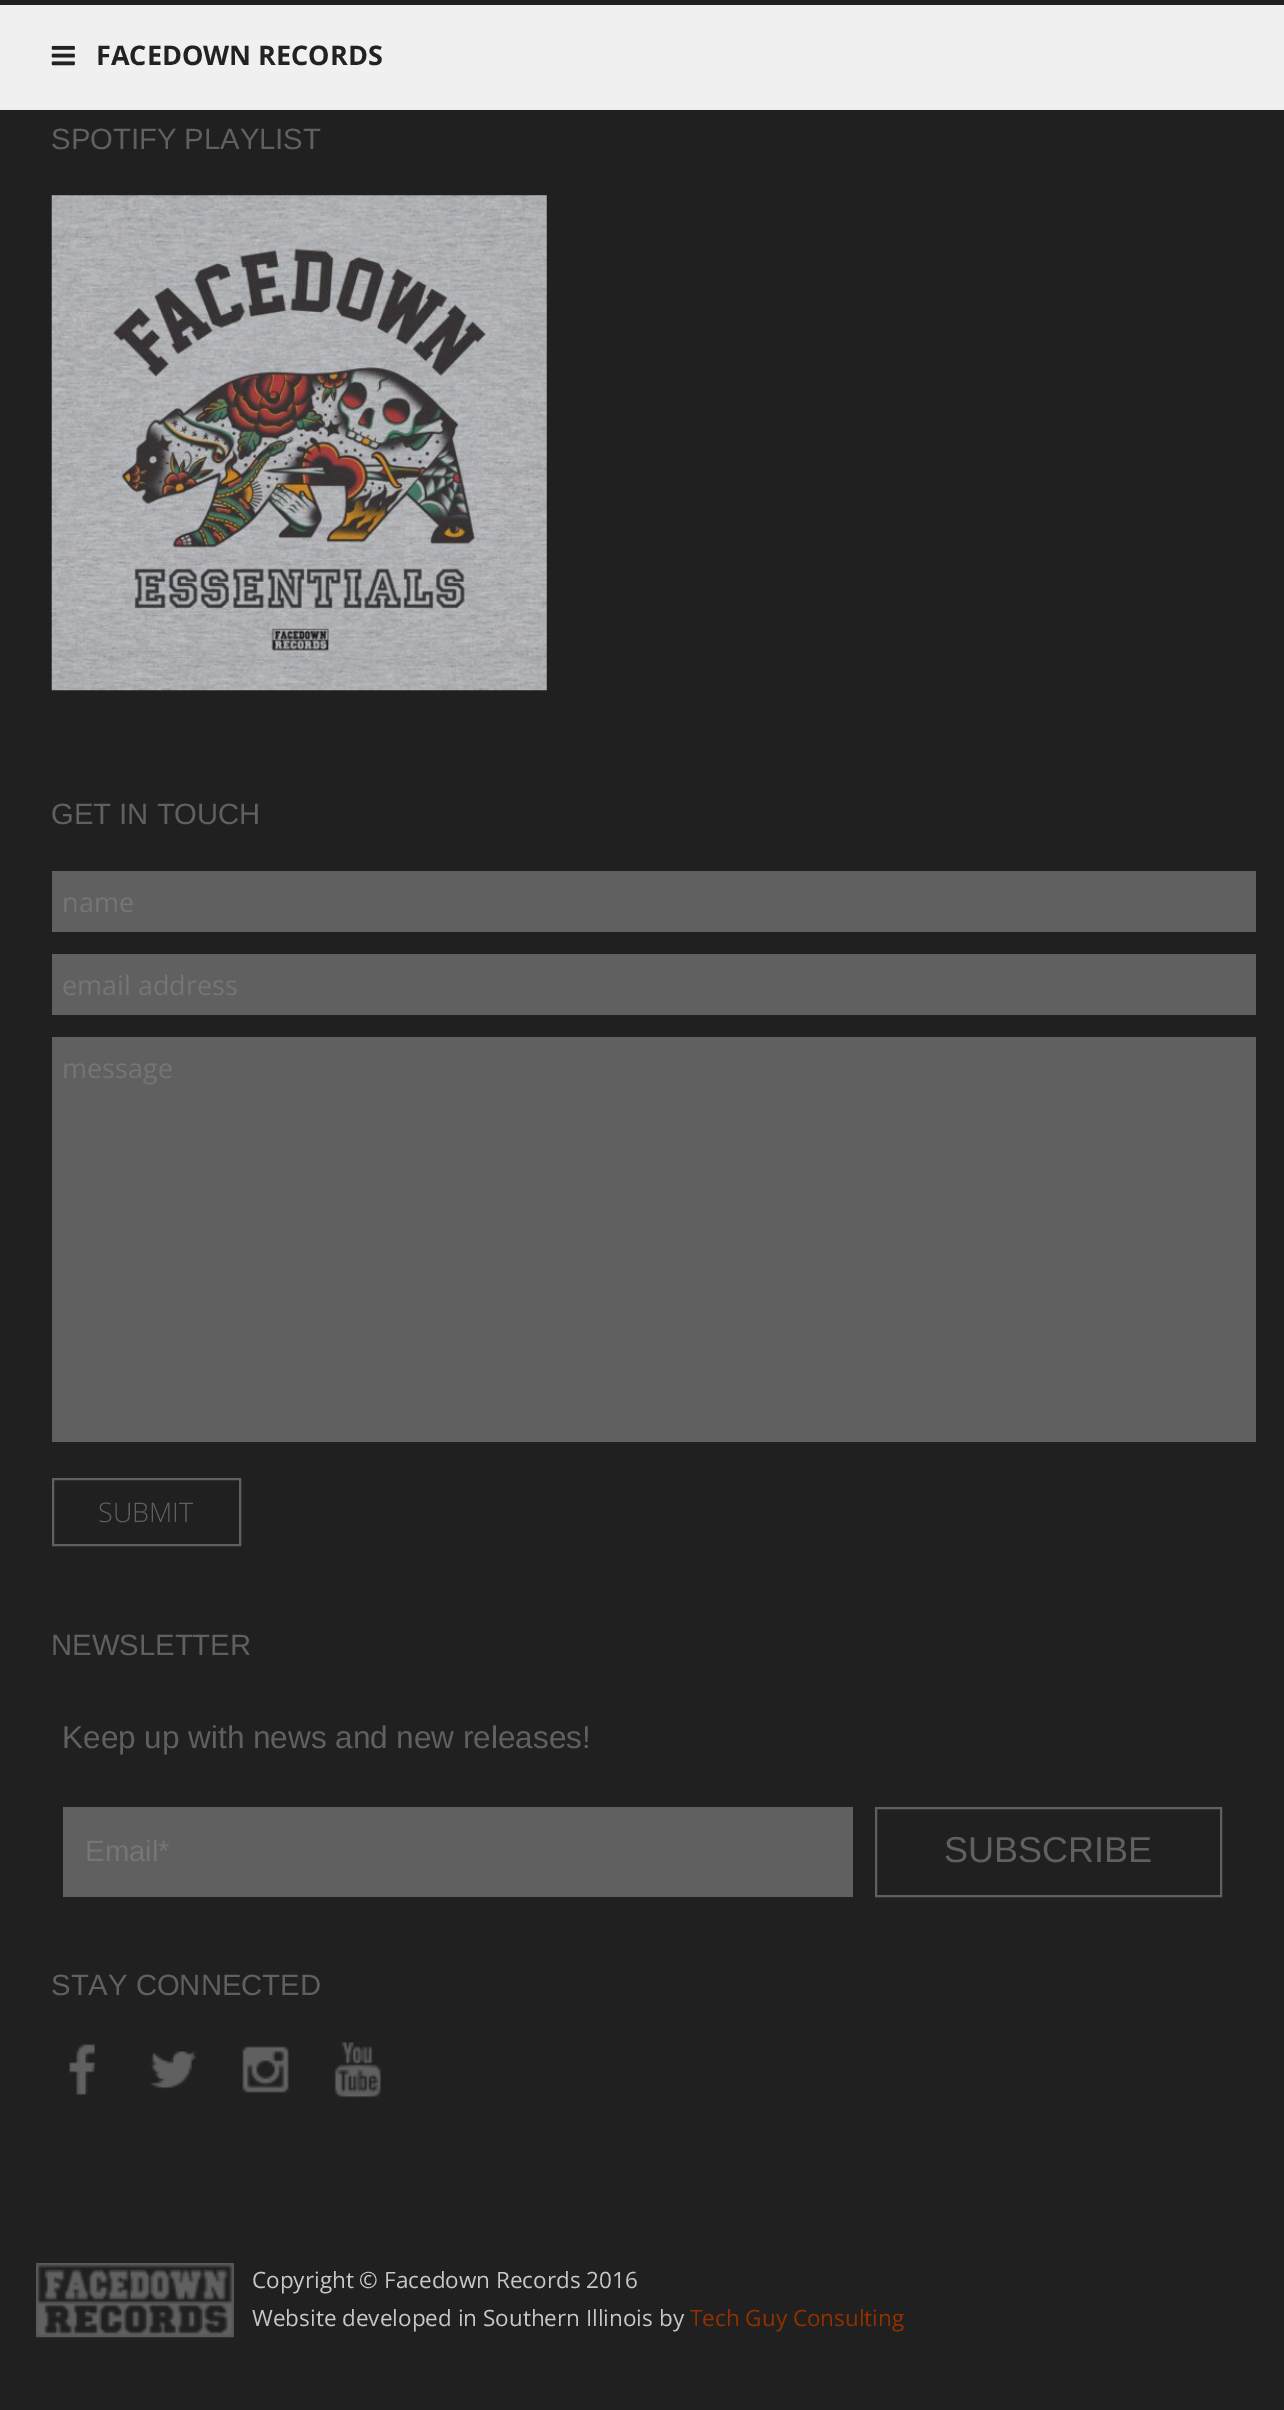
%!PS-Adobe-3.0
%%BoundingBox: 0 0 1284 2410
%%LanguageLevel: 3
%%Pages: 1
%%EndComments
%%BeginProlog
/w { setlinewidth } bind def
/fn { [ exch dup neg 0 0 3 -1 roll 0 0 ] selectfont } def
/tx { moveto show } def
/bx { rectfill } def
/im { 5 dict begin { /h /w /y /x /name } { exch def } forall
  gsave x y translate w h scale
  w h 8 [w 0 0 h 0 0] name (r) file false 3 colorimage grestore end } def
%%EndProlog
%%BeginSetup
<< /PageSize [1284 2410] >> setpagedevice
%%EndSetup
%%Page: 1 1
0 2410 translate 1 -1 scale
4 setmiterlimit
0.125 setgray
0 0 1284 2410 bx
0.941 setgray
0 5 1284 103 bx
0.933 setgray
0 108 1284 2 bx
(image0.raw) 51 45 24 21 im
/OpenSans-Bold 27 fn
0.133 setgray
(FACEDOWN RECORDS) 96 65 tx
/LiberationSans-Regular 29.25 fn
0.376 setgray
(SPOTIFY PLAYLIST) 51 149 tx
(image1.raw) 51 195 496 496 im
(GET IN TOUCH) 51 824 tx
52 871 1204 61 bx
/OpenSans-Regular 27 fn
0.459 setgray
(name) 62 912 tx
0.376 setgray
52 954 1204 61 bx
0.459 setgray
(email address) 62 995 tx
0.376 setgray
52 1037 1204 405 bx
0.459 setgray
(message) 62 1078 tx
0.376 setgray
2 w
53 1479 187 66 rectstroke
/OpenSans-Light 27 fn
(SUBMIT) 98 1522 tx
/LiberationSans-Regular 29.25 fn
(NEWSLETTER) 51 1655 tx
/LiberationSans-Regular 31.5 fn
(Keep up with news and new releases!) 62 1748 tx
63 1807 790 90 bx
/LiberationSans-Regular 29.25 fn
0.459 setgray
(Email*) 85 1861 tx
0.376 setgray
876 1808 345 88 rectstroke
/LiberationSans-Regular 36 fn
(SUBSCRIBE) 944 1862 tx
/LiberationSans-Regular 29.25 fn
(STAY CONNECTED) 51 1995 tx
(image2.raw) 69 2044 27 51 im
(image3.raw) 150 2051 47 38 im
(image4.raw) 242 2046 47 47 im
(image5.raw) 334 2042 47 56 im
(image6.raw) 36 2263 198 75 im
/OpenSans-Regular 22.5 fn
0.784 setgray
(Copyright © Facedown Records 2016) 252 2288 tx
(Website developed in Southern Illinois by) 252 2326 tx
0.576 0.188 0 setrgbcolor
(Tech Guy Consulting) 690 2326 tx
showpage
%%EOF
